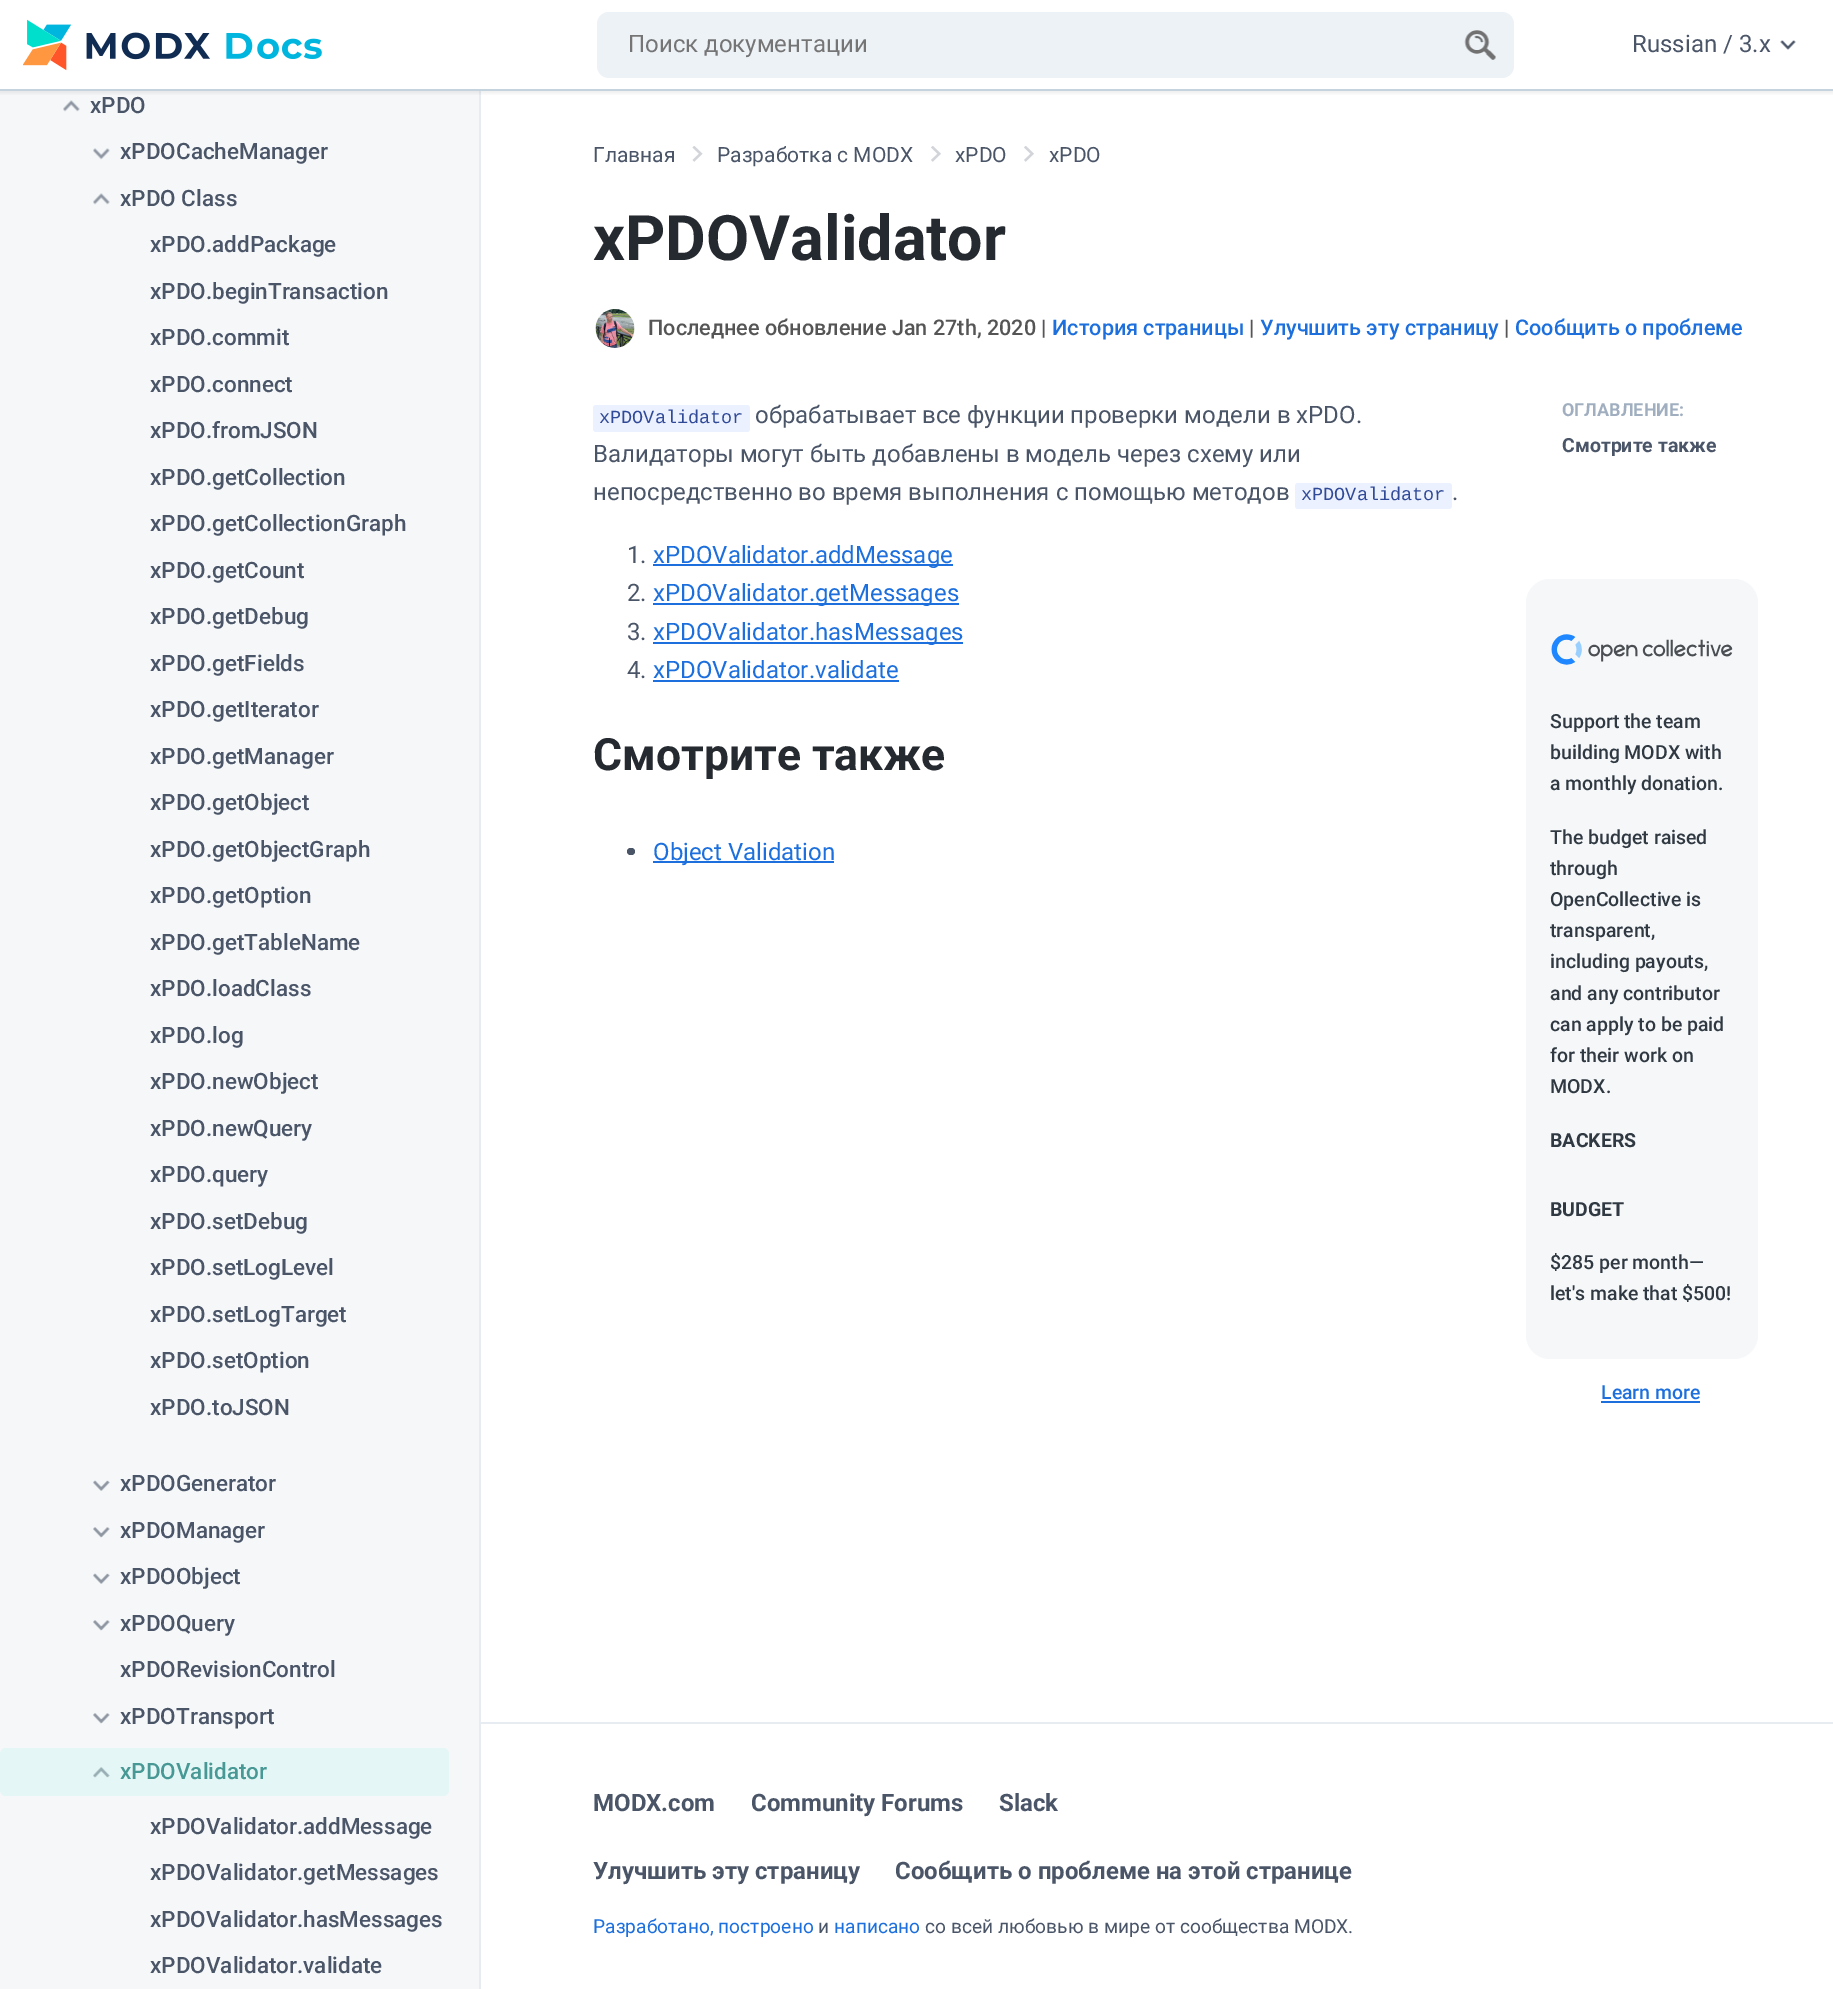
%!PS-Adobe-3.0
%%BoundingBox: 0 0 1833 1989
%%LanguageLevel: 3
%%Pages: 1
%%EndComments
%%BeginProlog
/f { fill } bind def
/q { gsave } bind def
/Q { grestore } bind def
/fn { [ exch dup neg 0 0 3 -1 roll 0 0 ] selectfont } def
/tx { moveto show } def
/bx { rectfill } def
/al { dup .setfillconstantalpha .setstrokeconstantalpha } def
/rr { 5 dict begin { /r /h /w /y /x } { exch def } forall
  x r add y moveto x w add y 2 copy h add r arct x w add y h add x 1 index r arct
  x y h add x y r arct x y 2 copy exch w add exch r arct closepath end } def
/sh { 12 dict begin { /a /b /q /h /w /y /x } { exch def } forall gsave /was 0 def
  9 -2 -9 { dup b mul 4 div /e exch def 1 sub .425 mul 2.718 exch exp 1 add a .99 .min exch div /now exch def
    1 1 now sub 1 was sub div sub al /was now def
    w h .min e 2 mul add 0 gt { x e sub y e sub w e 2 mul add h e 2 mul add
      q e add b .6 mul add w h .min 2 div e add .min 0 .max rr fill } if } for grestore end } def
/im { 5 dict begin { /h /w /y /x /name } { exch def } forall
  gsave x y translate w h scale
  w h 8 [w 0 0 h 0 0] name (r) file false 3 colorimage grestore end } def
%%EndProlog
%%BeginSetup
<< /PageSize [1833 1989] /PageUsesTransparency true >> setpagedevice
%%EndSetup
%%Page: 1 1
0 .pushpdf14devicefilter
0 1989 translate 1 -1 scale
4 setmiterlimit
1 setgray
0 0 1833 1989 bx
0.961 0.969 0.976 setrgbcolor
0 91 479 1898 bx
0.902 0.925 0.945 setrgbcolor
480 1722 1353 2 bx
479 90 2 1899 bx
(image3.raw) 63 100 17 12 im
q
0 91 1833 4 rectclip
0 setgray
0 2 1833 90 0 3 0.1 sh
Q
0.773 0.827 0.875 setrgbcolor
0 89 1833 2 bx
(image0.raw) 23 19 299 52 im
0.929 0.949 0.969 setrgbcolor
597 12 917 66 12 rr f
/Roboto-Regular 24 fn
0.459 setgray
(Поиск документации) 628 52 tx
(image1.raw) 1464 30 32 30 im
0.29 0.333 0.408 setrgbcolor
(Russian / 3.x) 1632 52 tx
(image2.raw) 1780 40 16 10 im
/Roboto-Medium 22.5 fn
(xPDO) 90 113 tx
(image4.raw) 93 148 17 12 im
(xPDOCacheManager) 120 159 tx
(image3.raw) 93 193 17 12 im
(xPDO Class) 120 206 tx
(xPDO.addPackage) 150 252 tx
(xPDO.beginTransaction) 150 299 tx
(xPDO.commit) 150 345 tx
(xPDO.connect) 150 392 tx
(xPDO.fromJSON) 150 438 tx
(xPDO.getCollection) 150 485 tx
(xPDO.getCollectionGraph) 150 531 tx
(xPDO.getCount) 150 578 tx
(xPDO.getDebug) 150 624 tx
(xPDO.getFields) 150 671 tx
(xPDO.getIterator) 150 717 tx
(xPDO.getManager) 150 764 tx
(xPDO.getObject) 150 810 tx
(xPDO.getObjectGraph) 150 857 tx
(xPDO.getOption) 150 903 tx
(xPDO.getTableName) 150 950 tx
(xPDO.loadClass) 150 996 tx
(xPDO.log) 150 1043 tx
(xPDO.newObject) 150 1089 tx
(xPDO.newQuery) 150 1136 tx
(xPDO.query) 150 1182 tx
(xPDO.setDebug) 150 1229 tx
(xPDO.setLogLevel) 150 1275 tx
(xPDO.setLogTarget) 150 1322 tx
(xPDO.setOption) 150 1368 tx
(xPDO.toJSON) 150 1415 tx
(image5.raw) 93 1480 17 11 im
(xPDOGenerator) 120 1491 tx
(image6.raw) 93 1527 17 11 im
(xPDOManager) 120 1538 tx
(image5.raw) 93 1573 17 11 im
(xPDOObject) 120 1584 tx
(image6.raw) 93 1620 17 11 im
(xPDOQuery) 120 1631 tx
(xPDORevisionControl) 120 1677 tx
(image6.raw) 93 1713 17 11 im
(xPDOTransport) 120 1724 tx
(image7.raw) 93 1767 17 11 im
0.141 0.475 0.471 setrgbcolor
(xPDOValidator) 120 1779 tx
0.25 al
0.698 0.961 0.918 setrgbcolor
0 1748 449 48 6 rr f
1 al
0.29 0.333 0.408 setrgbcolor
(xPDOValidator.addMessage) 150 1834 tx
(xPDOValidator.getMessages) 150 1880 tx
(xPDOValidator.hasMessages) 150 1927 tx
(xPDOValidator.validate) 150 1973 tx
/Roboto-Regular 21 fn
(Главная) 593 162 tx
(image8.raw) 692 146 11 16 im
(Разработка с MODX) 717 162 tx
(image9.raw) 931 146 10 16 im
(xPDO) 955 162 tx
(image9.raw) 1024 146 10 16 im
(xPDO) 1049 162 tx
/Roboto-Bold 62.75 fn
0.145 0.161 0.188 setrgbcolor
(xPDOValidator) 593 260 tx
(image10.raw) 595 309 40 39 im
/Roboto-Medium 21.6 fn
0.333 setgray
(Последнее обновление Jan 27th, 2020 |) 648 335 tx
0.11 0.435 0.863 setrgbcolor
(История страницы) 1052 335 tx
0.333 setgray
(|) 1249 335 tx
0.11 0.435 0.863 setrgbcolor
(Улучшить эту страницу) 1260 335 tx
0.333 setgray
(|) 1504 335 tx
0.11 0.435 0.863 setrgbcolor
(Сообщить о проблеме) 1515 335 tx
0.922 0.945 1 setrgbcolor
593 405 157 27 3 rr f
/LiberationMono-Regular 18.5 fn
0.192 0.29 0.592 setrgbcolor
(xPDOValidator) 599 423 tx
/Roboto-Regular 24 fn
0.29 0.333 0.408 setrgbcolor
(обрабатывает все функции проверки модели в xPDO.) 755 423 tx
(Валидаторы могут быть добавлены в модель через схему или) 593 462 tx
(непосредственно во время выполнения с помощью методов) 593 500 tx
0.922 0.945 1 setrgbcolor
1295 483 157 26 3 rr f
/LiberationMono-Regular 18.5 fn
0.192 0.29 0.592 setrgbcolor
(xPDOValidator) 1301 500 tx
/Roboto-Regular 24 fn
0.29 0.333 0.408 setrgbcolor
(.) 1452 500 tx
(1.) 627 563 tx
0.11 0.435 0.863 setrgbcolor
653 564 300 2 bx
(xPDOValidator.addMessage) 653 563 tx
0.29 0.333 0.408 setrgbcolor
(2.) 627 601 tx
0.11 0.435 0.863 setrgbcolor
653 603 306 2 bx
(xPDOValidator.getMessages) 653 601 tx
0.29 0.333 0.408 setrgbcolor
(3.) 627 640 tx
0.11 0.435 0.863 setrgbcolor
653 642 310 2 bx
(xPDOValidator.hasMessages) 653 640 tx
0.29 0.333 0.408 setrgbcolor
(4.) 627 678 tx
0.11 0.435 0.863 setrgbcolor
(xPDOValidator.validate) 653 678 tx
653 680 246 2 bx
/Roboto-Bold 44.5 fn
0.145 0.161 0.188 setrgbcolor
(Смотрите также) 593 770 tx
0.29 0.333 0.408 setrgbcolor
627 848 8 7 3.5 rr f
0.11 0.435 0.863 setrgbcolor
653 861 181 2 bx
/Roboto-Regular 24 fn
(Object Validation) 653 860 tx
/Roboto-Bold 18 fn
0.627 0.682 0.753 setrgbcolor
(ОГЛАВЛЕНИЕ:) 1562 416 tx
/Roboto-Bold 19.5 fn
0.29 0.333 0.408 setrgbcolor
(Смотрите также) 1562 452 tx
0.961 0.969 0.976 setrgbcolor
1526 579 232 780 24 rr f
(image11.raw) 1551 634 182 31 im
/Roboto-Medium 19.5 fn
0.188 0.224 0.259 setrgbcolor
(Support the team) 1550 728 tx
(building MODX with) 1550 759 tx
(a monthly donation.) 1550 790 tx
(The budget raised) 1550 844 tx
(through) 1550 875 tx
(OpenCollective is) 1550 906 tx
(transparent,) 1550 937 tx
(including payouts,) 1550 968 tx
(and any contributor) 1550 1000 tx
(can apply to be paid) 1550 1031 tx
(for their work on) 1550 1062 tx
(MODX.) 1550 1093 tx
/Roboto-Bold 19.5 fn
(BACKERS) 1550 1147 tx
(BUDGET) 1550 1216 tx
/Roboto-Medium 19.5 fn
($285 per month—) 1550 1269 tx
(let's make that $500!) 1550 1300 tx
0.11 0.435 0.863 setrgbcolor
(Learn more) 1601 1399 tx
1601 1401 99 2 bx
/Roboto-Bold 24 fn
0.29 0.333 0.408 setrgbcolor
(MODX.com) 593 1811 tx
(Community Forums) 751 1811 tx
(Slack) 999 1811 tx
(Улучшить эту страницу) 593 1879 tx
(Сообщить о проблеме на этой странице) 895 1879 tx
/Roboto-Regular 19.2 fn
0.11 0.435 0.863 setrgbcolor
(Разработано, построено) 593 1933 tx
0.29 0.333 0.408 setrgbcolor
(и) 818 1933 tx
0.11 0.435 0.863 setrgbcolor
(написано) 834 1933 tx
0.29 0.333 0.408 setrgbcolor
(со всей любовью в мире от сообщества MODX.) 925 1933 tx
.poppdf14devicefilter showpage
%%EOF
